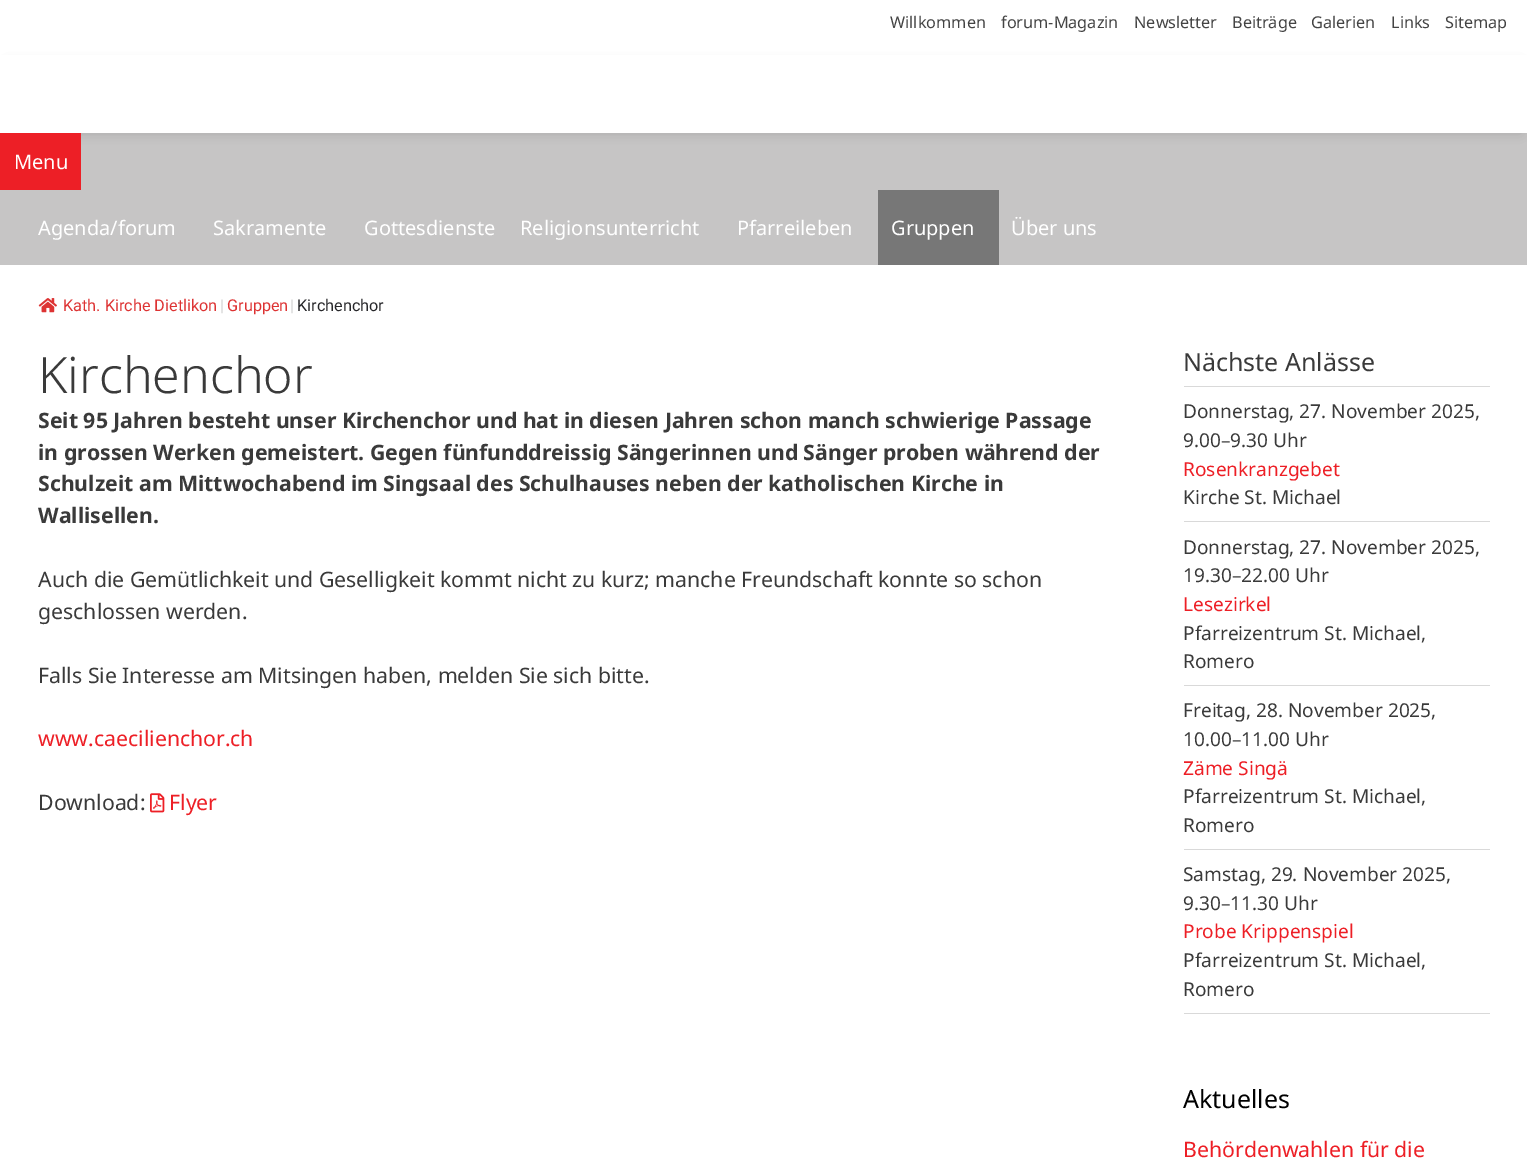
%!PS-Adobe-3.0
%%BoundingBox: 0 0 1527 1172
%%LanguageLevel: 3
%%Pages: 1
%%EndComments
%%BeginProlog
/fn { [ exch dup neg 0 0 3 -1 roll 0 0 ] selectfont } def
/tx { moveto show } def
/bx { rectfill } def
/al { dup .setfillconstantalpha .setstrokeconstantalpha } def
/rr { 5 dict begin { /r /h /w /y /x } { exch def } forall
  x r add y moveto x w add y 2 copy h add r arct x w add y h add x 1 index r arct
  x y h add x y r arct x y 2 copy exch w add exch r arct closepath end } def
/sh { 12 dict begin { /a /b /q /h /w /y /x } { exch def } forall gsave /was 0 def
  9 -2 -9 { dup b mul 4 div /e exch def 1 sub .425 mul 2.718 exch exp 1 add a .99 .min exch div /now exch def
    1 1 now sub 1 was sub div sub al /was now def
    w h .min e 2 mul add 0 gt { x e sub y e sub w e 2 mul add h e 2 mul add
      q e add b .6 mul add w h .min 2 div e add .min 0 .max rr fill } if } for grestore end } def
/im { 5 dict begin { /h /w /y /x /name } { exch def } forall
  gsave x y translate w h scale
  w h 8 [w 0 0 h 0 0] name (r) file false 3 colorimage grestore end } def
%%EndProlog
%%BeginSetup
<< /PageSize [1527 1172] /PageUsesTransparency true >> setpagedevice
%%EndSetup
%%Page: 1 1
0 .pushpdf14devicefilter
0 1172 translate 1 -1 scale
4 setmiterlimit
1 setgray
0 0 1527 1172 bx
/NotoSans-Regular 16.25 fn
0.267 setgray
(Willkommen) 890 28 tx
(forum-Magazin) 1001 28 tx
(Newsletter) 1134 28 tx
(Beiträge) 1232 28 tx
(Galerien) 1311 28 tx
(Links) 1391 28 tx
(Sitemap) 1445 28 tx
0.776 0.773 0.773 setrgbcolor
0 133 1527 132 bx
0 setgray
8 65 1512 66 0 6 0.2 sh
1 setgray
0 55 1527 78 bx
0.929 0.122 0.149 setrgbcolor
0 133 81 57 bx
/NotoSans-Regular 20 fn
1 setgray
(Menu) 14 169 tx
(Agenda/forum) 38 235 tx
(Sakramente) 213 235 tx
(Gottesdienste) 364 235 tx
(Religionsunterricht) 520 235 tx
(Pfarreileben) 737 235 tx
0.467 setgray
878 190 121 75 bx
1 setgray
(Gruppen) 891 235 tx
(Über uns) 1011 235 tx
(image0.raw) 38 298 19 15 im
/Roboto-Regular 16.25 fn
0.867 0.2 0.2 setrgbcolor
(Kath. Kirche Dietlikon) 63 311 tx
0.8 setgray
(|) 220 311 tx
0.867 0.2 0.2 setrgbcolor
(Gruppen) 227 311 tx
0.8 setgray
(|) 290 311 tx
0.153 0.153 0.165 setrgbcolor
(Kirchenchor) 297 311 tx
/NotoSans-Light 50 fn
0.227 setgray
(Kirchenchor) 38 393 tx
/NotoSans-Bold 21.25 fn
(Seit 95 Jahren besteht unser Kirchenchor und hat in diesen Jahren schon manch schwierige Passage) 38 428 tx
(in grossen Werken gemeistert. Gegen fünfunddreissig Sängerinnen und Sänger proben während der) 38 460 tx
(Schulzeit am Mittwochabend im Singsaal des Schulhauses neben der katholischen Kirche in) 38 491 tx
(Wallisellen.) 38 523 tx
/NotoSans-Regular 21.25 fn
(Auch die Gemütlichkeit und Geselligkeit kommt nicht zu kurz; manche Freundschaft konnte so schon) 38 587 tx
(geschlossen werden.) 38 619 tx
(Falls Sie Interesse am Mitsingen haben, melden Sie sich bitte.) 38 683 tx
0.929 0.122 0.149 setrgbcolor
(www.caecilienchor.ch) 38 746 tx
0.227 setgray
(Download:) 38 810 tx
(image1.raw) 150 793 15 20 im
0.929 0.122 0.149 setrgbcolor
(Flyer) 169 810 tx
0.851 setgray
1184 1013 306 1 bx
/NotoSans-Regular 25 fn
0.227 setgray
(Nächste Anlässe) 1183 371 tx
0.851 setgray
1184 386 306 1 bx
/NotoSans-Regular 19.1 fn
0.227 setgray
(Donnerstag, 27. November 2025,) 1183 418 tx
(9.00–9.30 Uhr) 1183 447 tx
0.929 0.122 0.149 setrgbcolor
(Rosenkranzgebet) 1183 476 tx
0.227 setgray
(Kirche St. Michael) 1183 504 tx
0.851 setgray
1184 521 306 1 bx
0.227 setgray
(Donnerstag, 27. November 2025,) 1183 554 tx
(19.30–22.00 Uhr) 1183 582 tx
0.929 0.122 0.149 setrgbcolor
(Lesezirkel) 1183 611 tx
0.227 setgray
(Pfarreizentrum St. Michael,) 1183 640 tx
(Romero) 1183 668 tx
0.851 setgray
1184 685 306 1 bx
0.227 setgray
(Freitag, 28. November 2025,) 1183 717 tx
(10.00–11.00 Uhr) 1183 746 tx
0.929 0.122 0.149 setrgbcolor
(Zäme Singä) 1183 775 tx
0.227 setgray
(Pfarreizentrum St. Michael,) 1183 803 tx
(Romero) 1183 832 tx
0.851 setgray
1184 849 306 1 bx
0.227 setgray
(Samstag, 29. November 2025,) 1183 881 tx
(9.30–11.30 Uhr) 1183 910 tx
0.929 0.122 0.149 setrgbcolor
(Probe Krippenspiel) 1183 938 tx
0.227 setgray
(Pfarreizentrum St. Michael,) 1183 967 tx
(Romero) 1183 996 tx
/NotoSans-Regular 25 fn
0 setgray
(Aktuelles) 1183 1108 tx
/NotoSans-Regular 21.25 fn
0.929 0.122 0.149 setrgbcolor
(Behördenwahlen für die) 1183 1157 tx
.poppdf14devicefilter showpage
%%EOF
